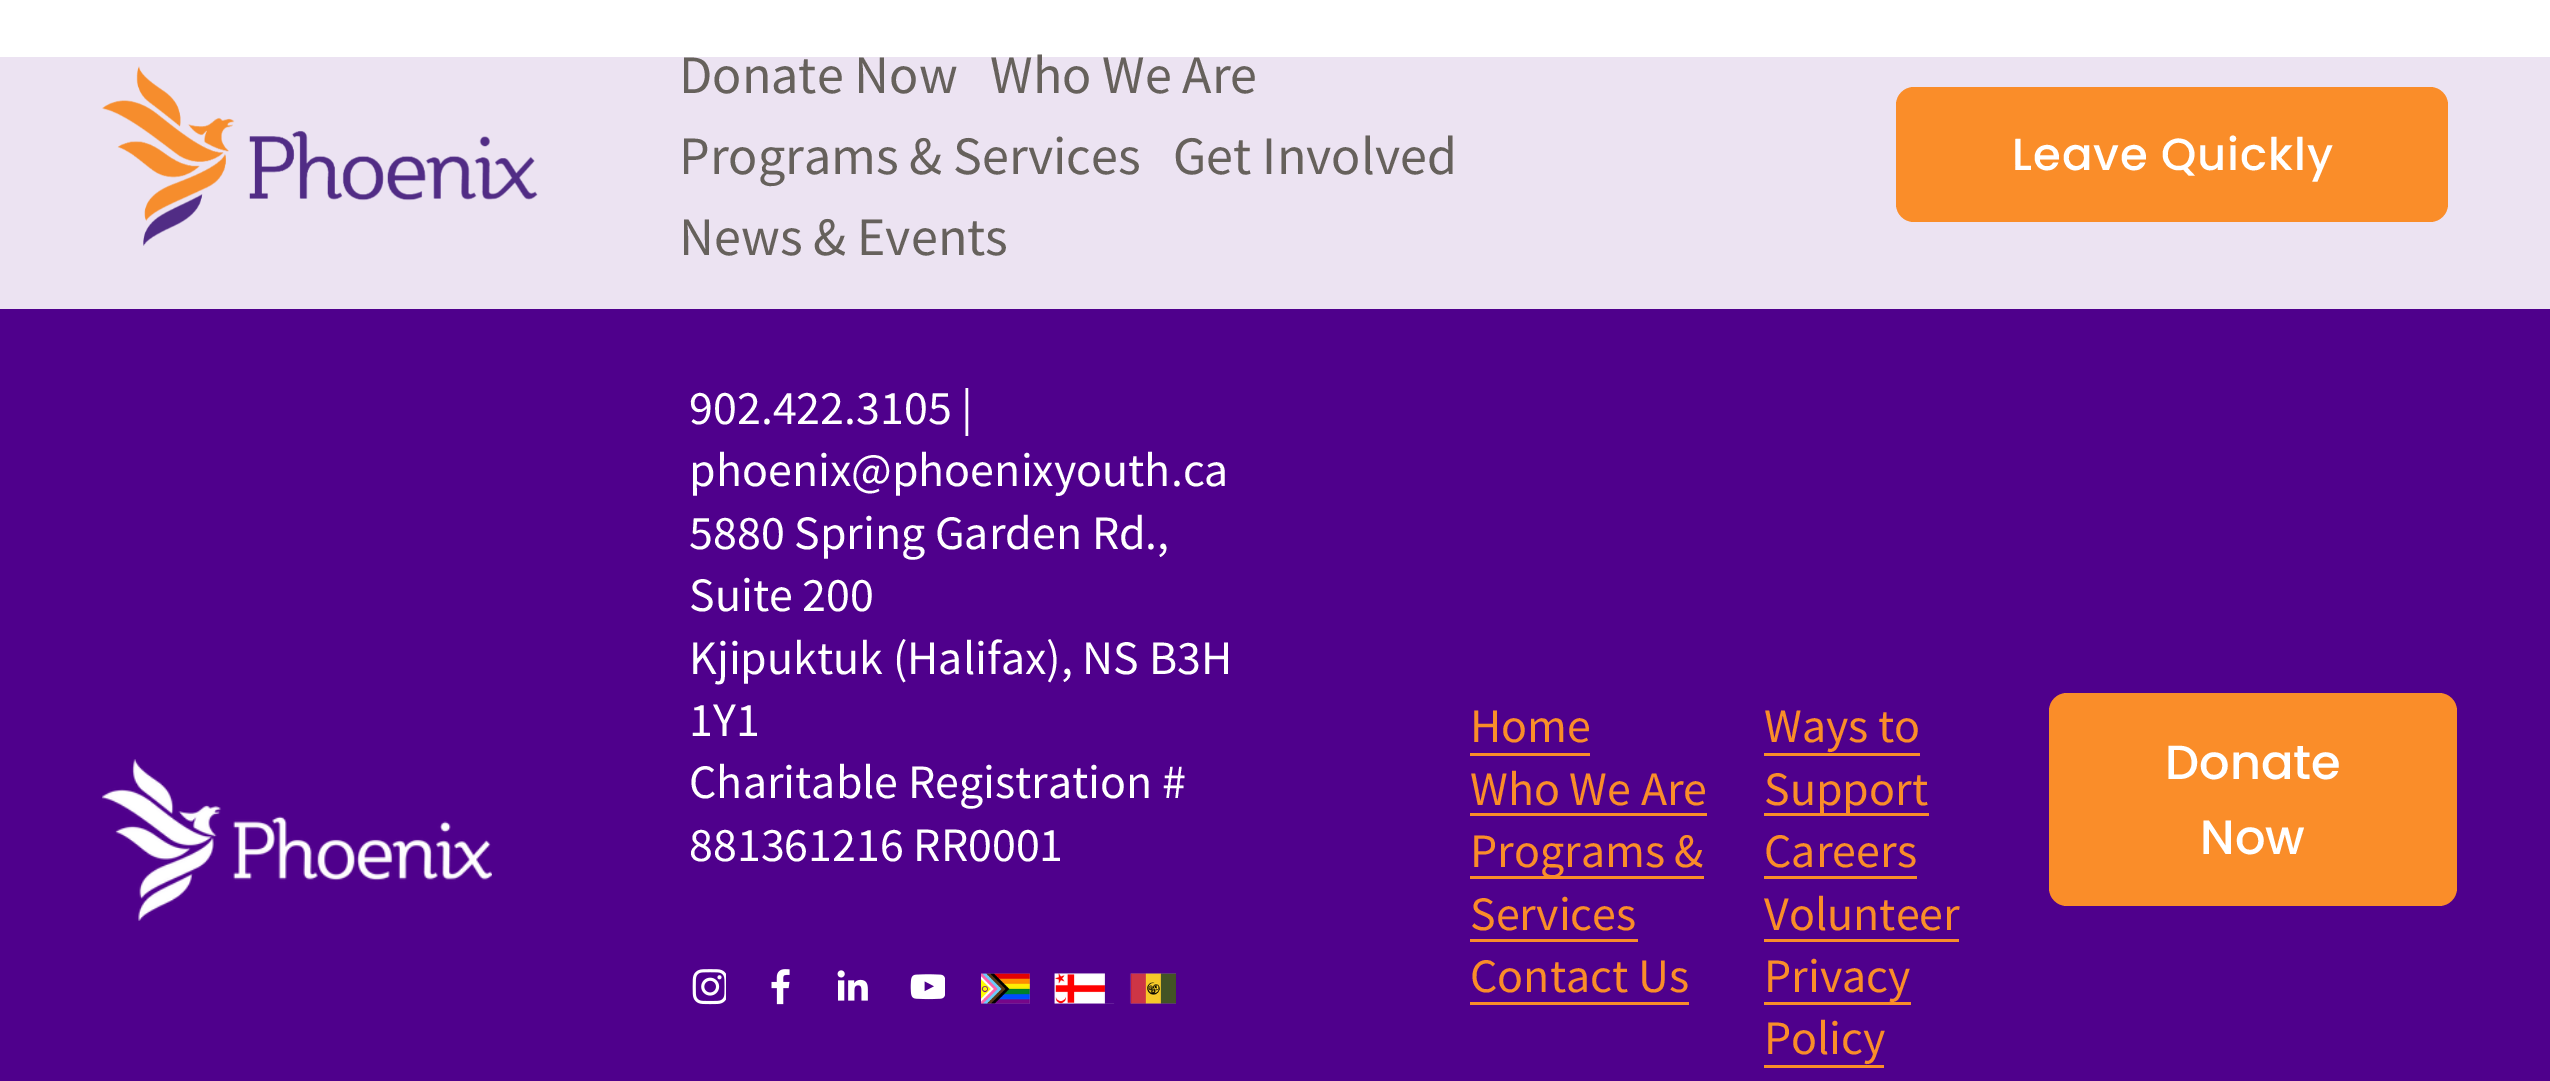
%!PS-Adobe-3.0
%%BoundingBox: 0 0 2550 1081
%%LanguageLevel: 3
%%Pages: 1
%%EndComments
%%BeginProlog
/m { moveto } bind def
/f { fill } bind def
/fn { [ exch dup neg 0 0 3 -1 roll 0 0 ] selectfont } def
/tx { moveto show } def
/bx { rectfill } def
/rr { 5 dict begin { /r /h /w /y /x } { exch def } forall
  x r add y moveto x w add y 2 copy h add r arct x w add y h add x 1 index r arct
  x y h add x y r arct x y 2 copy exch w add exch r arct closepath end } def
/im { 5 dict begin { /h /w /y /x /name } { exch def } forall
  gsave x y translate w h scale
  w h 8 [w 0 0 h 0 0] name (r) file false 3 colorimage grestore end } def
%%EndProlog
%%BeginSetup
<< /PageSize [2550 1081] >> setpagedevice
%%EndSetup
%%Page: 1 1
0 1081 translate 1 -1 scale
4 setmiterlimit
1 setgray
0 0 2550 1081 bx
0.925 0.89 0.949 setrgbcolor
0 57 2550 252 bx
(image0.raw) 102 66 436 180 im
/SourceSansPro-Regular 54.1 fn
0.4 0.38 0.361 setrgbcolor
(Donate Now) 679 93 tx
(Who We Are) 990 93 tx
(Programs & Services) 679 174 tx
(Get Involved) 1173 174 tx
(News & Events) 679 255 tx
0.98 0.553 0.161 setrgbcolor
1896 87 552 135 18 rr f
/Poppins-Medium 45 fn
1 setgray
2012 170 m 0.9 0 (Leave Quickly) ashow
0.31 0 0.549 setrgbcolor
0 309 2550 772 bx
(image1.raw) 102 759 390 162 im
/SourceSansPro-Regular 48 fn
1 setgray
(902.422.3105 |) 689 424 tx
(phoenix@phoenixyouth.ca) 689 486 tx
(5880 Spring Garden Rd.,) 689 549 tx
(Suite 200) 689 611 tx
(Kjipuktuk \(Halifax\), NS B3H) 689 674 tx
(1Y1) 689 736 tx
(Charitable Registration #) 689 798 tx
(881361216 RR0001) 689 861 tx
0.98 0.553 0.161 setrgbcolor
(Home) 1470 742 tx
1470 753 120 3 bx
(Who We Are) 1470 805 tx
1470 813 237 3 bx
1470 876 234 3 bx
(Programs &) 1470 867 tx
(Services) 1470 930 tx
1470 939 168 3 bx
(Contact Us) 1470 992 tx
1470 1002 219 3 bx
(Ways to) 1764 742 tx
1764 753 156 3 bx
1764 813 165 3 bx
(Support) 1764 805 tx
(Careers) 1764 867 tx
1764 876 153 3 bx
(Volunteer) 1764 930 tx
1764 939 195 3 bx
(Privacy) 1764 992 tx
1764 1002 147 3 bx
(Policy) 1764 1054 tx
1764 1065 120 3 bx
2049 693 408 213 18 rr f
/Poppins-Medium 48 fn
1 setgray
(Donate) 2165 779 tx
(Now) 2200 854 tx
(image2.raw) 692 969 34 36 im
(image3.raw) 771 969 19 36 im
(image4.raw) 837 970 31 31 im
(image5.raw) 910 974 35 26 im
(image6.raw) 981 973 195 31 im
showpage
%%EOF
